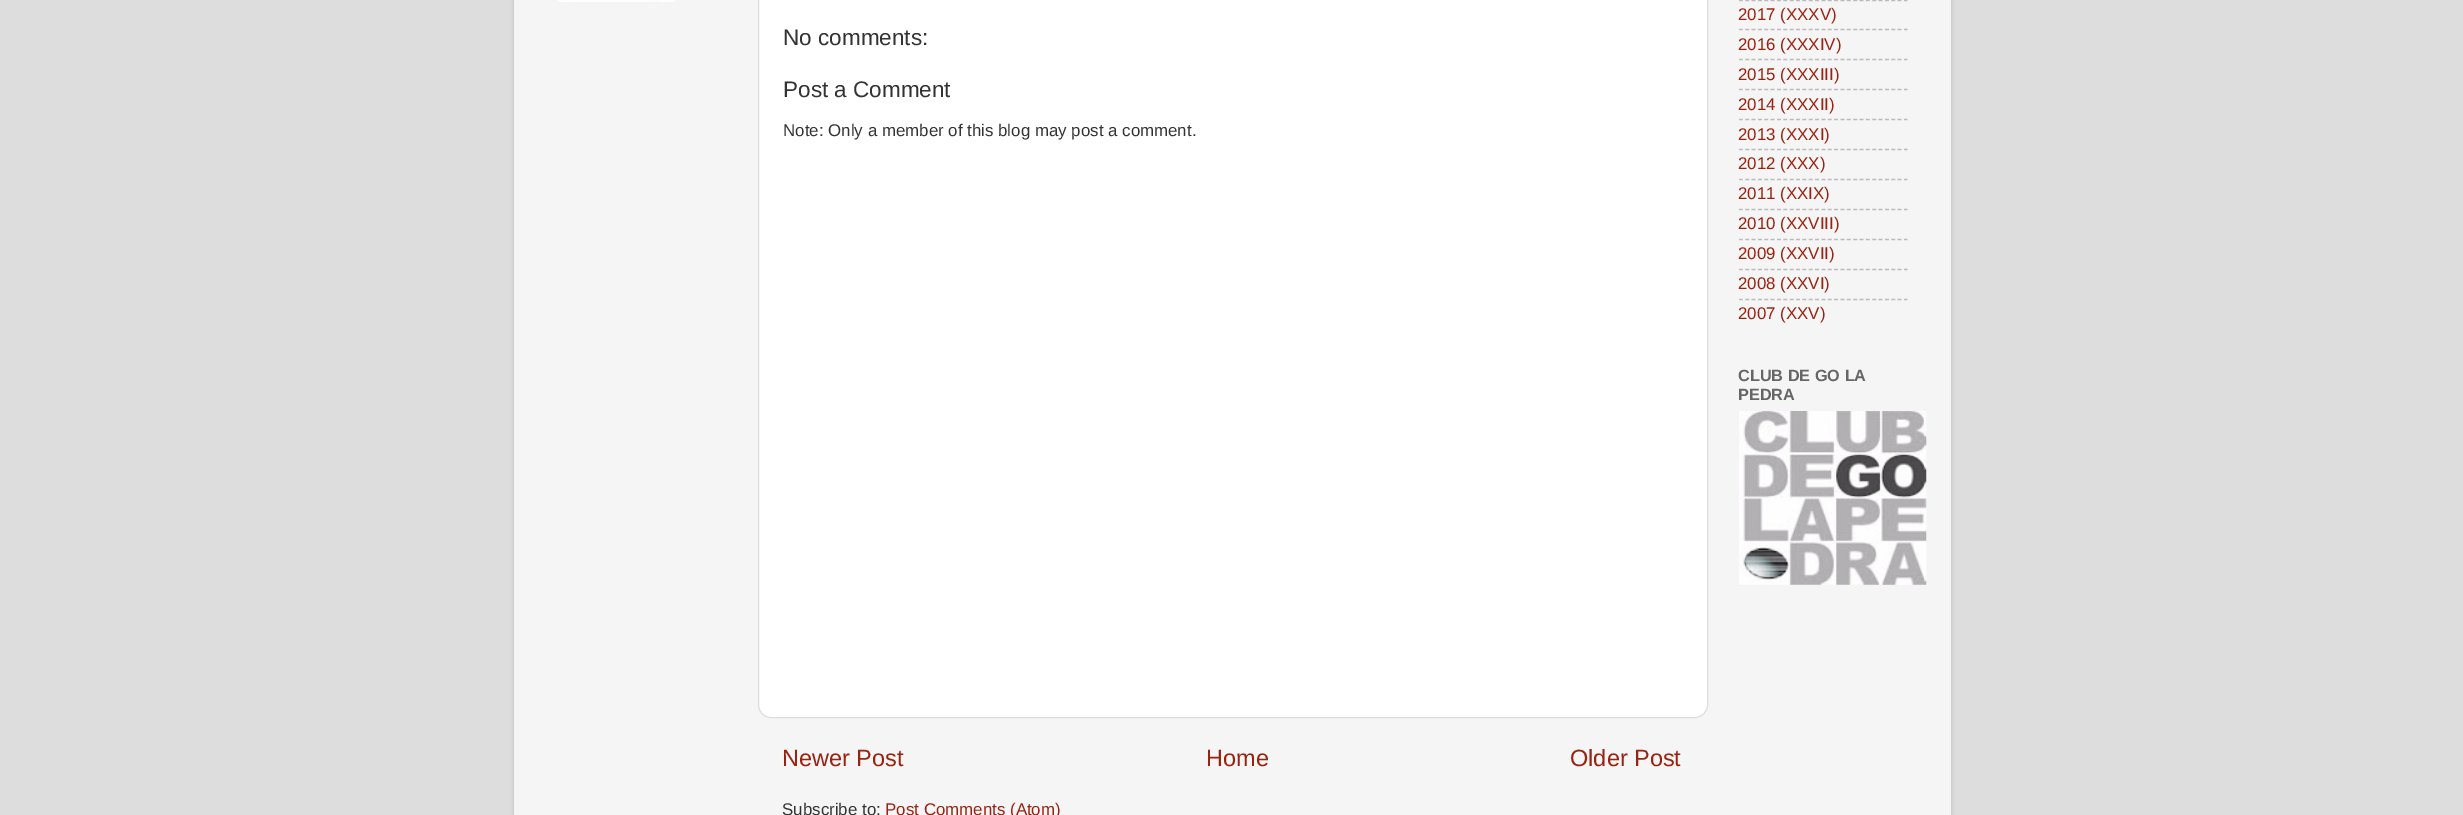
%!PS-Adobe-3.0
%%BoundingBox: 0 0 2463 815
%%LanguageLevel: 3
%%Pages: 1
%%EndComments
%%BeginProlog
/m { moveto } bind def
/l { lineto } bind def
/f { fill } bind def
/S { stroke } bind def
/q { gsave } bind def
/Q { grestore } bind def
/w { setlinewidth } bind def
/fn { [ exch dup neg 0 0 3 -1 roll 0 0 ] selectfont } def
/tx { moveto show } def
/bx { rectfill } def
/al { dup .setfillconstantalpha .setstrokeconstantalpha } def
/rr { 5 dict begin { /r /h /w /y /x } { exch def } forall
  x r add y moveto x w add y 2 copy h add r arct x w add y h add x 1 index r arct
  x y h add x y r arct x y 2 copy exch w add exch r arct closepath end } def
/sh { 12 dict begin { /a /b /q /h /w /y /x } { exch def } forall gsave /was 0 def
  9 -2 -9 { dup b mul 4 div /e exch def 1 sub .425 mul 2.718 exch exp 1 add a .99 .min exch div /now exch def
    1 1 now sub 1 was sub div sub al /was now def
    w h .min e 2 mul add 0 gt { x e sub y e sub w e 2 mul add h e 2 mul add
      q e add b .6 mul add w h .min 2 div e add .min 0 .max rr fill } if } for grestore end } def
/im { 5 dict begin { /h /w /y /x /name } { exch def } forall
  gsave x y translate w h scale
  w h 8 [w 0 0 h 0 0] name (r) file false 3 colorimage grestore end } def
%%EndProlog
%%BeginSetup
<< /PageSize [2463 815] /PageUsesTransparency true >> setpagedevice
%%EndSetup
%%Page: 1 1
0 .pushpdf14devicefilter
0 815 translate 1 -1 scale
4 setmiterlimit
0.867 setgray
0 0 2463 815 bx
0 setgray
514 -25 1437 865 19 2 0.15 sh
0.961 setgray
514 0 1437 815 bx
(image0.raw) 557 0 118 2 im
1 setgray
758.5 -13.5 949 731 12.5 rr q f Q
0.867 setgray
S
/LiberationSans-Regular 22.5 fn
0.2 setgray
(No comments:) 783 45 tx
(Post a Comment) 783 97 tx
/LiberationSans-Regular 16.9 fn
(Note: Only a member of this blog may post a comment.) 783 136 tx
/LiberationSans-Regular 23.5 fn
0.6 0.133 0.067 setrgbcolor
(Newer Post) 782 766 tx
(Home) 1206 766 tx
(Older Post) 1570 766 tx
/LiberationSans-Regular 16.9 fn
0.2 setgray
(Subscribe to:) 782 815 tx
0.6 0.133 0.067 setrgbcolor
(Post Comments \(Atom\)) 885 815 tx
0.733 setgray
1.2 w
[3.75 2.6] 0 setdash
1739 0.5 m 1907.5 0.5 l S
0.6 0.133 0.067 setrgbcolor
(2017 \(XXXV\)) 1738 20 tx
0.733 setgray
1739 29.5 m 1907.5 29.5 l S
0.6 0.133 0.067 setrgbcolor
(2016 \(XXXIV\)) 1738 50 tx
0.733 setgray
1739 59.5 m 1907.5 59.5 l S
0.6 0.133 0.067 setrgbcolor
(2015 \(XXXIII\)) 1738 80 tx
0.733 setgray
1739 89.5 m 1907.5 89.5 l S
0.6 0.133 0.067 setrgbcolor
(2014 \(XXXII\)) 1738 110 tx
0.733 setgray
1739 119.5 m 1907.5 119.5 l S
0.6 0.133 0.067 setrgbcolor
(2013 \(XXXI\)) 1738 140 tx
0.733 setgray
1739 149.5 m 1907.5 149.5 l S
0.6 0.133 0.067 setrgbcolor
(2012 \(XXX\)) 1738 169 tx
0.733 setgray
1739 179.5 m 1907.5 179.5 l S
0.6 0.133 0.067 setrgbcolor
(2011 \(XXIX\)) 1738 199 tx
0.733 setgray
1739 209.5 m 1907.5 209.5 l S
0.6 0.133 0.067 setrgbcolor
(2010 \(XXVIII\)) 1738 229 tx
0.733 setgray
1739 239.5 m 1907.5 239.5 l S
0.6 0.133 0.067 setrgbcolor
(2009 \(XXVII\)) 1738 259 tx
0.733 setgray
1739 269.5 m 1907.5 269.5 l S
0.6 0.133 0.067 setrgbcolor
(2008 \(XXVI\)) 1738 289 tx
0.733 setgray
1739 299.5 m 1907.5 299.5 l S
0.6 0.133 0.067 setrgbcolor
(2007 \(XXV\)) 1738 319 tx
/LiberationSans-Bold 16.25 fn
0.4 setgray
(CLUB DE GO LA) 1738 381 tx
(PEDRA) 1738 400 tx
(image1.raw) 1739 411 188 174 im
.poppdf14devicefilter showpage
%%EOF
